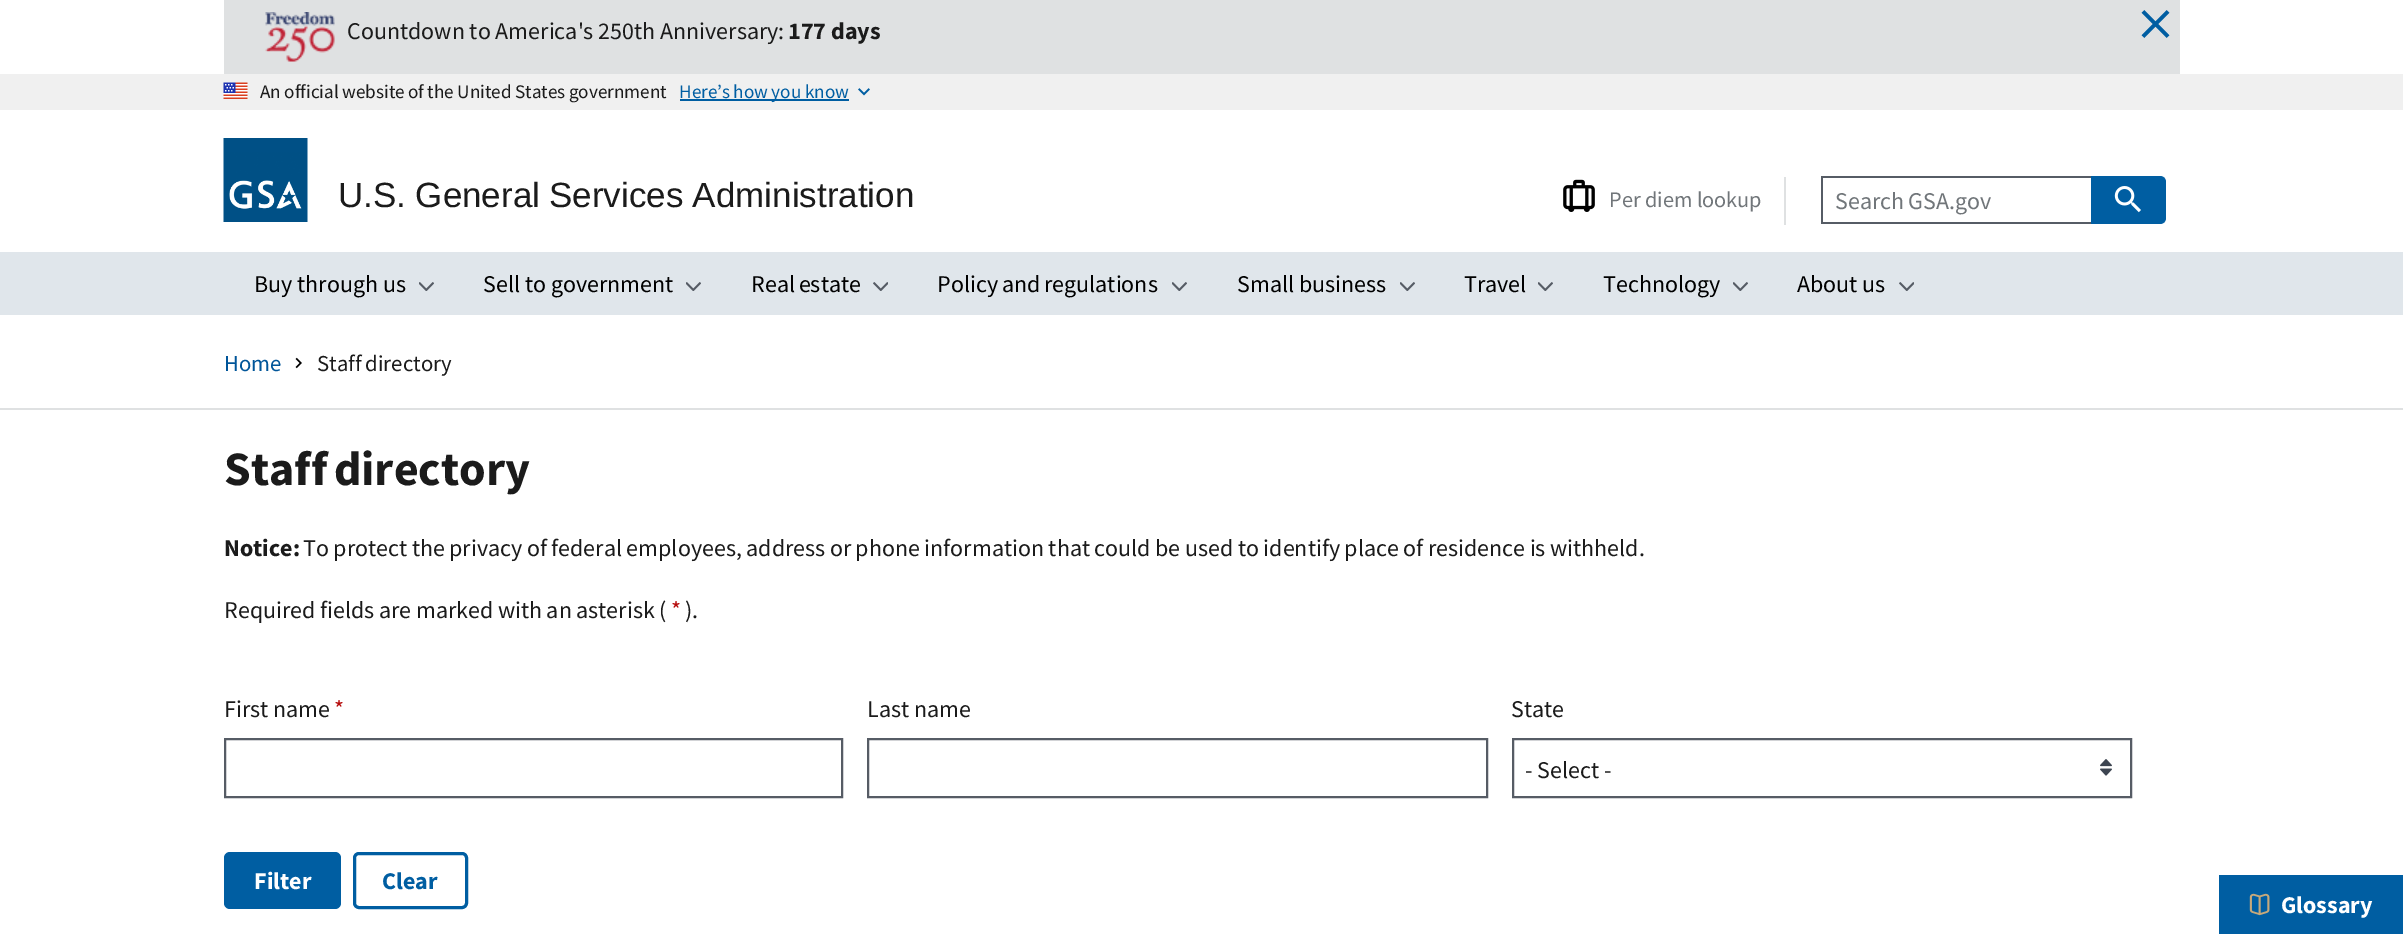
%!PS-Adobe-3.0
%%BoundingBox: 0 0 2403 934
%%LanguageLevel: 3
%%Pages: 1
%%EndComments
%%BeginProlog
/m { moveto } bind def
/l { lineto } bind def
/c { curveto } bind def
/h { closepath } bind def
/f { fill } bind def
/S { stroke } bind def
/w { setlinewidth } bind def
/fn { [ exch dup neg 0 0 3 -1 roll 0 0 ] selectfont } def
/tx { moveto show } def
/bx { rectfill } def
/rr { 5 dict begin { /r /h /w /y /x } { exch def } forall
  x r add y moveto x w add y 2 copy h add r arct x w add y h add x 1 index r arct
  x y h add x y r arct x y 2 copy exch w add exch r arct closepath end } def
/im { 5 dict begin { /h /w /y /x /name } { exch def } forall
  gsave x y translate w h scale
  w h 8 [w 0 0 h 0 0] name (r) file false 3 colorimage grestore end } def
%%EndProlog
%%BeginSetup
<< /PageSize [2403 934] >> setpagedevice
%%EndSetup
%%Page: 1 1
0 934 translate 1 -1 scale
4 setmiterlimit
1 setgray
0 0 2403 934 bx
0.875 0.882 0.886 setrgbcolor
224 0 1956 74 bx
(image0.raw) 265 12 70 50 im
/SourceSansPro-Regular 24 fn
0.106 setgray
(Countdown to America's 250th Anniversary:) 347 39 tx
/SourceSansPro-Bold 24 fn
(177 days) 788 39 tx
(image1.raw) 2141 10 29 28 im
0.941 setgray
0 74 2403 36 bx
(image2.raw) 223 82 25 17 im
/SourceSansPro-Regular 19.2 fn
0.106 setgray
260 98 m -0.5 0 32 (An official website of the United States government) widthshow
0 0.369 0.635 setrgbcolor
680 99 169 2 bx
679 98 m -0.5 0 32 (Here’s how you know) widthshow
(image3.raw) 858 88 12 8 im
(image4.raw) 223 138 85 84 im
/LiberationSans-Regular 35 fn
0.106 setgray
338 207 m -0.5 0 32 (U.S. General Services Administration) widthshow
0.878 0.902 0.922 setrgbcolor
0 252 2403 63 bx
0.875 0.882 0.886 setrgbcolor
1784 177 2 48 bx
(image5.raw) 1563 179 32 33 im
/SourceSansPro-Regular 22.25 fn
0.443 0.463 0.478 setrgbcolor
(Per diem lookup) 1609 207 tx
0.337 0.361 0.396 setrgbcolor
1821 176 270 2 bx
1821 222 270 2 bx
1821 176 2 48 bx
/SourceSansPro-Regular 24 fn
0.443 0.463 0.478 setrgbcolor
1835 209 m -1 0 32 (Search GSA.gov) widthshow
0 0.369 0.635 setrgbcolor
2091 176 m 2160 176 l 2163.5 176 2166 178.5 2166 182 c 2166 218 l 2166 221.5 2163.5 224 2160 224 c 2091 224 l h f
(image6.raw) 2114 186 27 27 im
0 setgray
(Buy through us) 254 292 tx
(image7.raw) 419 282 15 9 im
(Sell to government) 483 292 tx
(image7.raw) 686 282 15 9 im
751 292 m -1 0 32 (Real estate) widthshow
(image8.raw) 873 282 15 9 im
937 292 m -1 0 32 (Policy and regulations) widthshow
(image7.raw) 1172 282 15 9 im
(Small business) 1237 292 tx
(image7.raw) 1400 282 15 9 im
(Travel) 1464 292 tx
(image7.raw) 1538 282 15 9 im
(Technology) 1603 292 tx
(image7.raw) 1733 282 15 9 im
(About us) 1797 292 tx
(image8.raw) 1899 282 15 9 im
/SourceSansPro-Regular 22.75 fn
0 0.333 0.6 setrgbcolor
(Home) 224 371 tx
(image9.raw) 295 357 7 12 im
0.106 setgray
317 371 m -1 0 32 (Staff directory) widthshow
0.875 0.882 0.886 setrgbcolor
0 408 2403 2 bx
/SourceSansPro-Bold 48 fn
0.106 setgray
224 485 m -3 0 32 (Staff directory) widthshow
/SourceSansPro-Bold 24 fn
(Notice:) 224 556 tx
/SourceSansPro-Regular 24 fn
303 556 m -0.3 0 32 (To protect the privacy of federal employees, address or phone information that could be used to identify place of residence is withheld.) widthshow
224 618 m -0.25 0 32 (Required fields are marked with an asterisk \() widthshow
0.71 0.035 0.035 setrgbcolor
(*) 671 618 tx
0.106 setgray
(\).) 685 618 tx
(First name) 224 717 tx
0.71 0.035 0.035 setrgbcolor
(*) 334 717 tx
0.337 0.361 0.396 setrgbcolor
2 w
225 739 617 58 rectstroke
0.106 setgray
(Last name) 867 717 tx
0.337 0.361 0.396 setrgbcolor
868 739 619 58 rectstroke
0.106 setgray
(State) 1511 717 tx
(image10.raw) 2100 759 12 17 im
0.337 0.361 0.396 setrgbcolor
1513 739 618 58 rectstroke
0.106 setgray
(- Select -) 1525 778 tx
0 0.369 0.635 setrgbcolor
224 852 117 57 6 rr f
/SourceSansPro-Bold 24 fn
1 setgray
(Filter) 254 889 tx
0 0.369 0.635 setrgbcolor
3 w
354.5 853.5 112 54 4.5 rr S
(Clear) 382 889 tx
2219 875 184 59 bx
(image11.raw) 2249 893 21 23 im
1 setgray
(Glossary) 2281 913 tx
showpage
%%EOF
